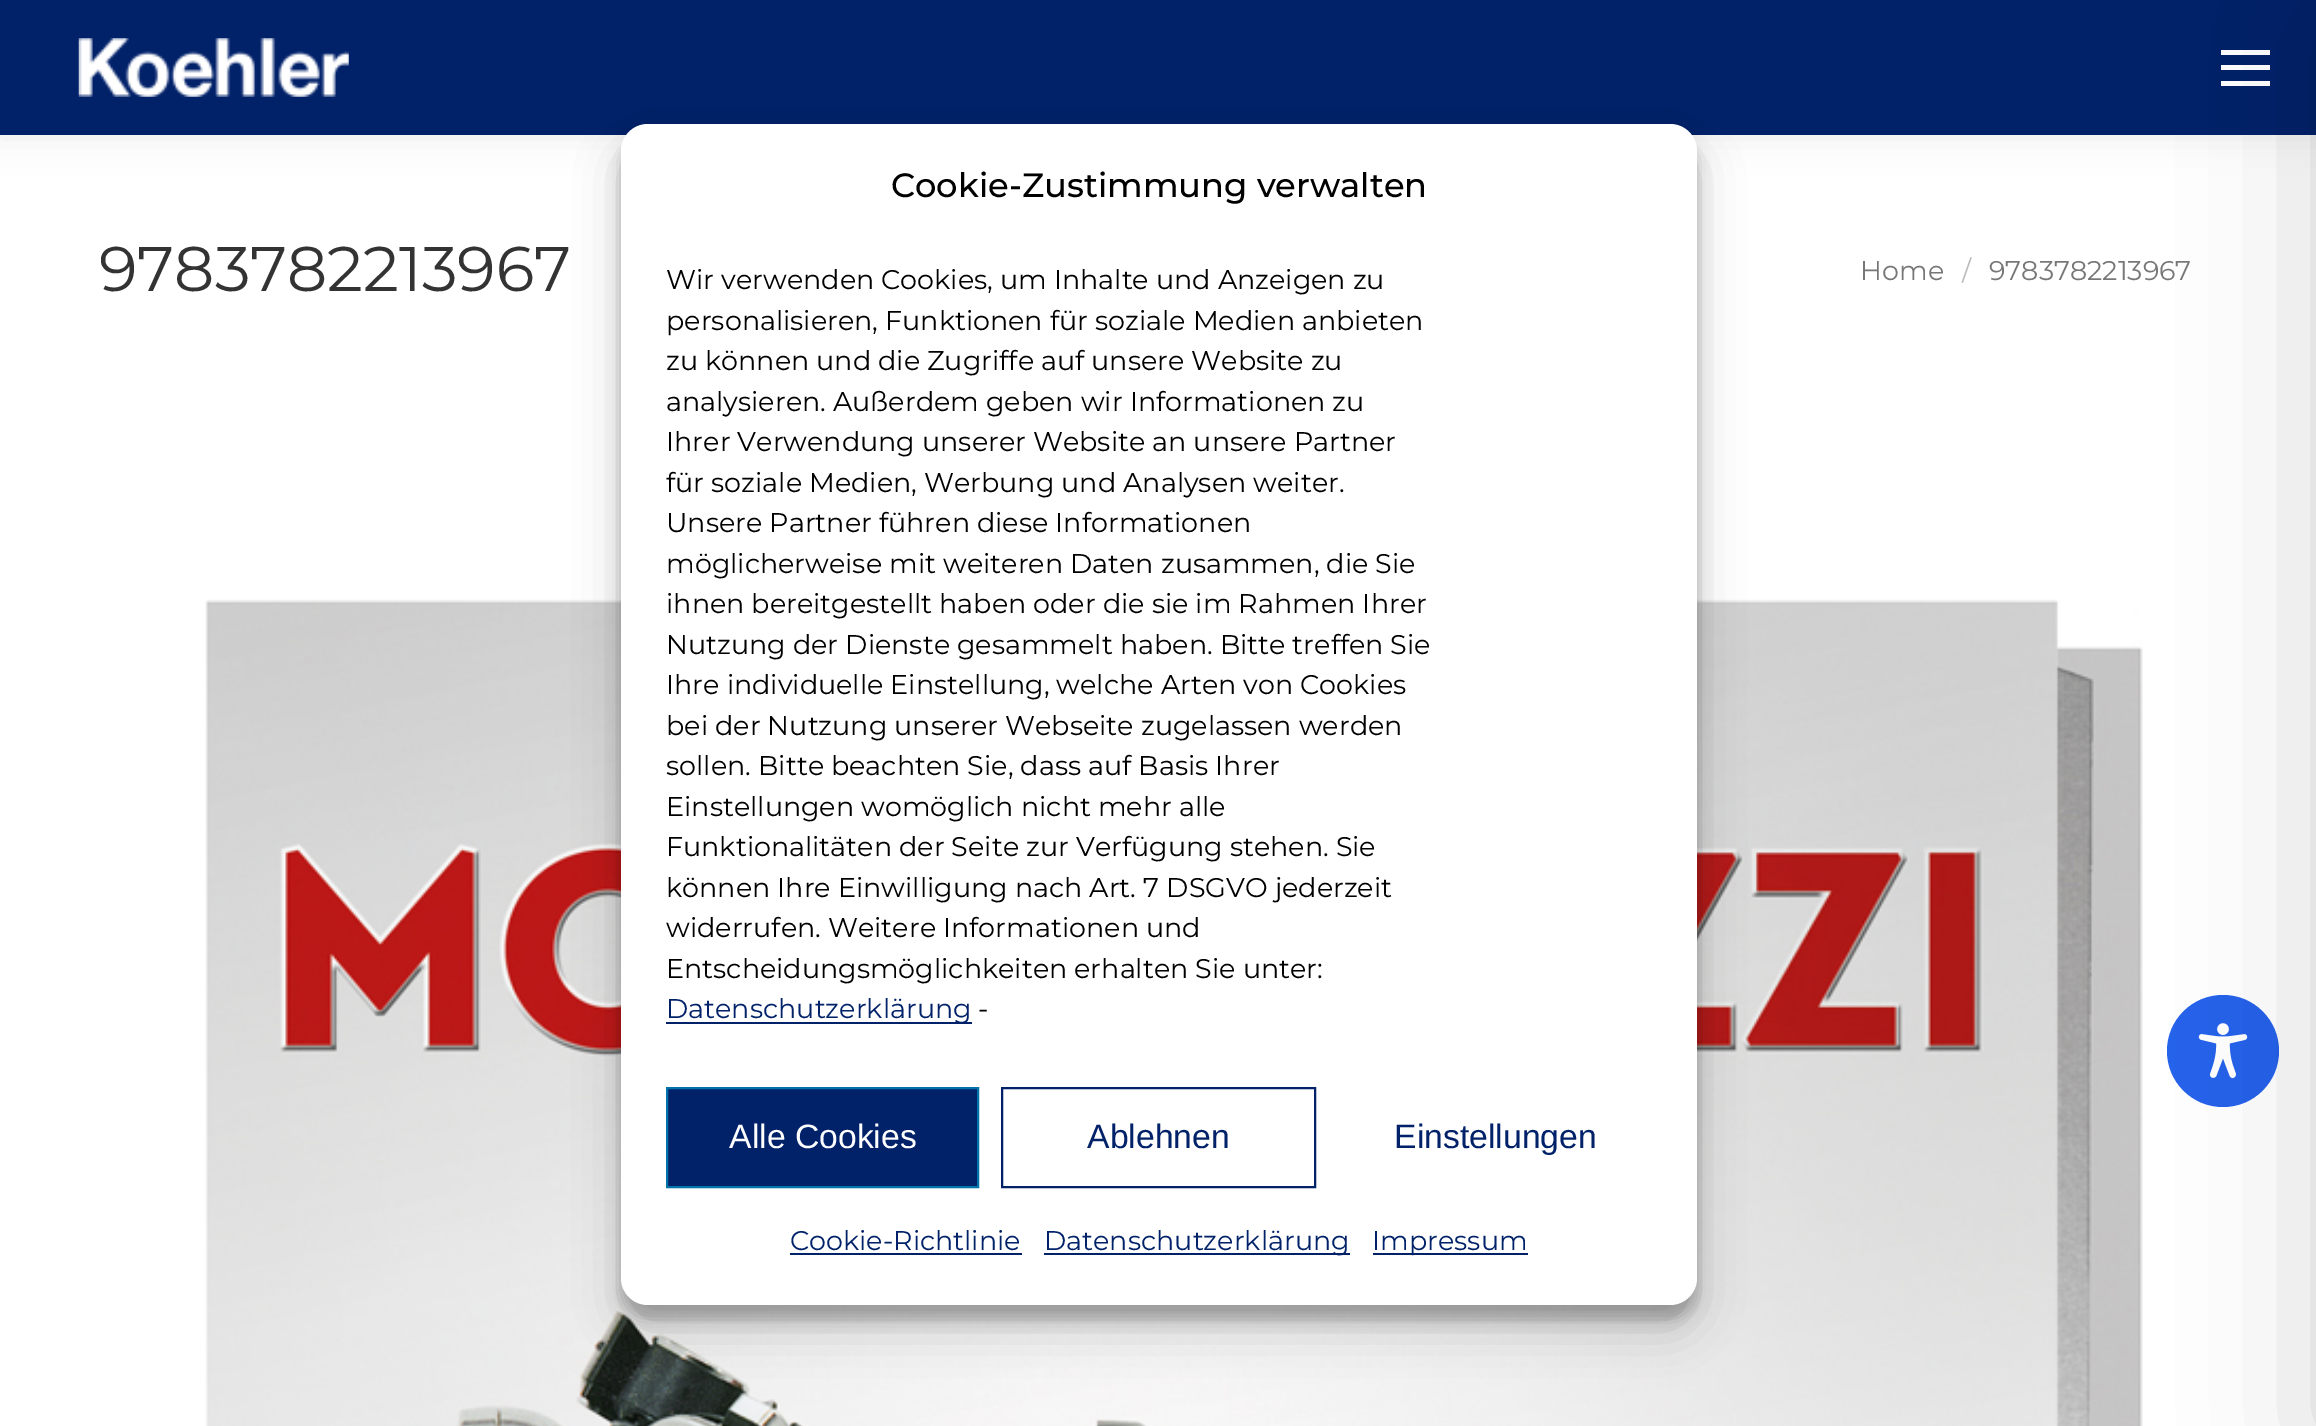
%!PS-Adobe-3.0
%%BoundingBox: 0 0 2316 1426
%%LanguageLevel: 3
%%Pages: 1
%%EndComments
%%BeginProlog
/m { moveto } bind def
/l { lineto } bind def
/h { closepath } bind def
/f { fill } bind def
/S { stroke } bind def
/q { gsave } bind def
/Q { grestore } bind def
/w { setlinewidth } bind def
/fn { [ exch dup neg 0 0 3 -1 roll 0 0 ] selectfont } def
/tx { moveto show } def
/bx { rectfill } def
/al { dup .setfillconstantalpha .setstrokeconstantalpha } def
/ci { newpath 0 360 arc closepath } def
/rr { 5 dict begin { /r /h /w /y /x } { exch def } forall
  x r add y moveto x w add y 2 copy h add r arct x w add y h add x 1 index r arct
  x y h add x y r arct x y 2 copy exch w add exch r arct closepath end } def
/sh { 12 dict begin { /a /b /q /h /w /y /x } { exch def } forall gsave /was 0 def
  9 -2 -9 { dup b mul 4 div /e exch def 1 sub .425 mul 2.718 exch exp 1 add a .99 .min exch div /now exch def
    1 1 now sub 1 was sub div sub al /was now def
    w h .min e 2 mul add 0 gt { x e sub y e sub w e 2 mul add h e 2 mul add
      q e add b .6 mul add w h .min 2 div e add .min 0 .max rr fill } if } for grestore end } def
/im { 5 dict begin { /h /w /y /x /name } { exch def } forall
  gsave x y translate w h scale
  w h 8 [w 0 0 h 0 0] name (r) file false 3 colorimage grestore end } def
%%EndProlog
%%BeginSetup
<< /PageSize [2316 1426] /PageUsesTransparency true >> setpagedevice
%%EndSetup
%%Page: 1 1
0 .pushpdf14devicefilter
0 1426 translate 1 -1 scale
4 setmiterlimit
1 setgray
0 0 2316 1426 bx
0 setgray
-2 -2 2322 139 0 17 0.07 sh
0.004 0.129 0.412 setrgbcolor
0 0 2316 135 bx
(image1.raw) 205 599 1938 827 im
0 setgray
621 137 1076 1182 27 7 0.23 sh
621 146 1076 1182 27 22.5 0.19 sh
1 setgray
621 124 1076 1181 27 rr f
/Montserrat-Medium 33.75 fn
0 setgray
(Cookie-Zustimmung verwalten) 891 197 tx
/Montserrat-Regular 27 fn
(Wir verwenden Cookies, um Inhalte und Anzeigen zu) 666 289 tx
(personalisieren, Funktionen für soziale Medien anbieten) 666 330 tx
(zu können und die Zugriffe auf unsere Website zu) 666 370 tx
(analysieren. Außerdem geben wir Informationen zu) 666 411 tx
(Ihrer Verwendung unserer Website an unsere Partner) 666 451 tx
(für soziale Medien, Werbung und Analysen weiter.) 666 492 tx
(Unsere Partner führen diese Informationen) 666 532 tx
(möglicherweise mit weiteren Daten zusammen, die Sie) 666 573 tx
(ihnen bereitgestellt haben oder die sie im Rahmen Ihrer) 666 613 tx
(Nutzung der Dienste gesammelt haben. Bitte treffen Sie) 666 654 tx
(Ihre individuelle Einstellung, welche Arten von Cookies) 666 694 tx
(bei der Nutzung unserer Webseite zugelassen werden) 666 735 tx
(sollen. Bitte beachten Sie, dass auf Basis Ihrer) 666 775 tx
(Einstellungen womöglich nicht mehr alle) 666 816 tx
(Funktionalitäten der Seite zur Verfügung stehen. Sie) 666 856 tx
(können Ihre Einwilligung nach Art. 7 DSGVO jederzeit) 666 897 tx
(widerrufen. Weitere Informationen und) 666 937 tx
(Entscheidungsmöglichkeiten erhalten Sie unter:) 666 978 tx
0.004 0.129 0.412 setrgbcolor
666 1022 306 2 bx
(Datenschutzerklärung) 666 1018 tx
0 setgray
(-) 978 1018 tx
0.004 0.129 0.412 setrgbcolor
667 1088 m 978 1088 l 978 1187 l 667 1187 l h q f Q
0 0.451 0.667 setrgbcolor
2 w
S
/LiberationSans-Regular 33.75 fn
1 setgray
(Alle Cookies) 729 1148 tx
0.004 0.129 0.412 setrgbcolor
1002 1088 313 99 rectstroke
(Ablehnen) 1087 1148 tx
(Einstellungen) 1394 1148 tx
/Montserrat-Regular 27 fn
(Cookie-Richtlinie) 790 1250 tx
790 1253 232 2 bx
1044 1253 306 2 bx
(Datenschutzerklärung) 1044 1250 tx
1373 1253 155 2 bx
(Impressum) 1372 1250 tx
1 setgray
2221 50 49 5 bx
2221 65 49 5 bx
2221 81 49 5 bx
0.145 0.388 0.922 setrgbcolor
2223 1051 56 ci f
(image2.raw) 2198 1023 50 56 im
0 setgray
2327 23 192 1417 0 67.5 0.2 sh
(image0.raw) 78 38 271 59 im
/Montserrat-Regular 63 fn
0.2 setgray
(9783782213967) 99 291 tx
/Montserrat-Regular 27 fn
0.467 setgray
(Home) 1860 280 tx
0.733 setgray
(/) 1962 280 tx
0.467 setgray
(9783782213967) 1989 280 tx
.poppdf14devicefilter showpage
%%EOF
